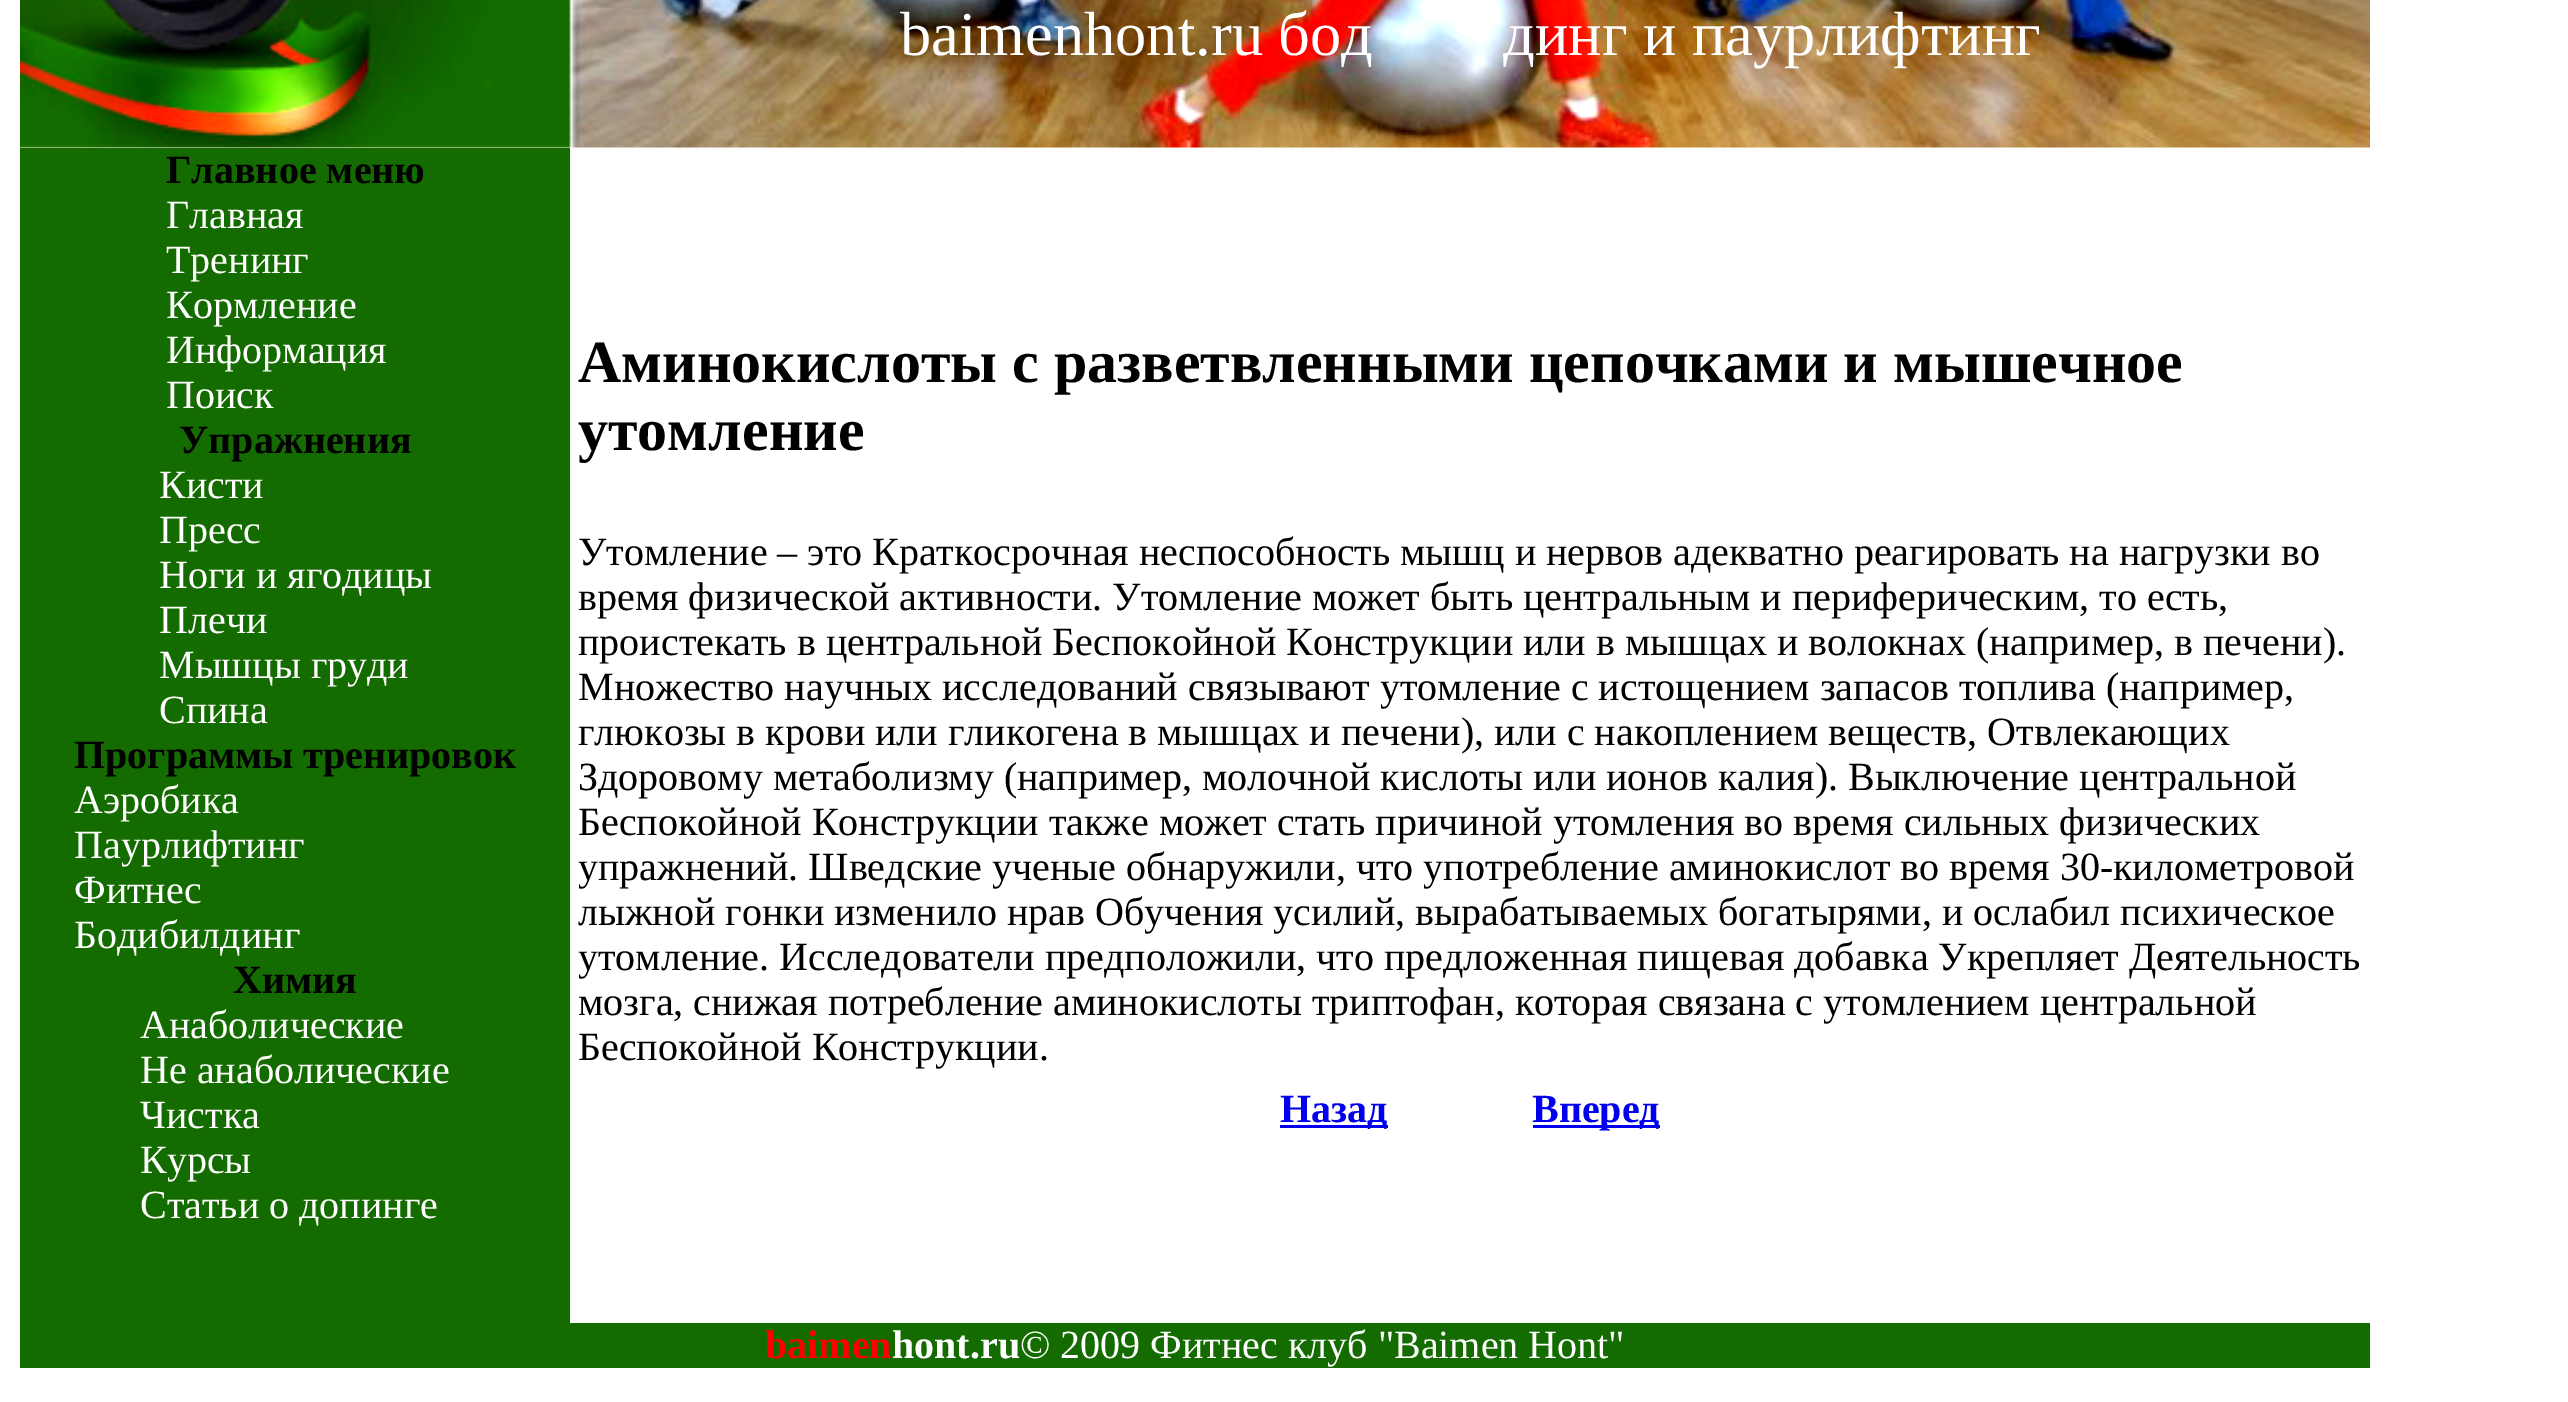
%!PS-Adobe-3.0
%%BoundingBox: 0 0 2568 1402
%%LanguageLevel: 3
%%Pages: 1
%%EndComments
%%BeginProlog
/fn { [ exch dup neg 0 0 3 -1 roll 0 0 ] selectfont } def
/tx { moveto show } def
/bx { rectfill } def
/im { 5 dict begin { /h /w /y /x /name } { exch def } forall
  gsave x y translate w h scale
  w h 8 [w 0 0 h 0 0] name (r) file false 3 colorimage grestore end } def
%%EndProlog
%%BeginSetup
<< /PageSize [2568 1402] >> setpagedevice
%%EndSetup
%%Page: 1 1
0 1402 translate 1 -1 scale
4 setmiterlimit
1 setgray
0 0 2568 1402 bx
(image0.raw) 20 0 2350 148 im
/LiberationSerif-Regular 62.5 fn
(baimenhont.ru бод) 900 55 tx
(динг и паурлифтинг) 1503 55 tx
0.078 0.424 0 setrgbcolor
20 148 550 1175 bx
/LiberationSerif-Bold 40 fn
0 setgray
(Главное меню) 166 183 tx
/LiberationSerif-Regular 40 fn
1 setgray
(Главная) 166 228 tx
(Тренинг) 166 273 tx
(Кормление) 166 318 tx
(Информация) 166 363 tx
(Поиск) 166 408 tx
/LiberationSerif-Bold 40 fn
0 setgray
(Упражнения) 179 453 tx
/LiberationSerif-Regular 40 fn
1 setgray
(Кисти) 159 498 tx
(Пресс) 159 543 tx
(Ноги и ягодицы) 159 588 tx
(Плечи) 159 633 tx
(Мышцы груди) 159 678 tx
(Спина) 159 723 tx
/LiberationSerif-Bold 40 fn
0 setgray
(Программы тренировок) 74 768 tx
/LiberationSerif-Regular 40 fn
1 setgray
(Аэробика) 74 813 tx
(Паурлифтинг) 74 858 tx
(Фитнес) 74 903 tx
(Бодибилдинг) 74 948 tx
/LiberationSerif-Bold 40 fn
0 setgray
(Химия) 233 993 tx
/LiberationSerif-Regular 40 fn
1 setgray
(Анаболические) 140 1038 tx
(Не анаболические) 140 1083 tx
(Чистка) 140 1128 tx
(Курсы) 140 1173 tx
(Статьи о допинге) 140 1218 tx
/LiberationSerif-Bold 60 fn
0 setgray
(Аминокислоты с разветвленными цепочками и мышечное) 578 382 tx
(утомление) 578 450 tx
/LiberationSerif-Regular 40 fn
(Утомление – это Краткосрочная неспособность мышц и нервов адекватно реагировать на нагрузки во) 578 565 tx
(время физической активности. Утомление может быть центральным и периферическим, то есть,) 578 610 tx
(проистекать в центральной Беспокойной Конструкции или в мышцах и волокнах \(например, в печени\).) 578 655 tx
(Множество научных исследований связывают утомление с истощением запасов топлива \(например,) 578 700 tx
(глюкозы в крови или гликогена в мышцах и печени\), или с накоплением веществ, Отвлекающих) 578 745 tx
(Здоровому метаболизму \(например, молочной кислоты или ионов калия\). Выключение центральной) 578 790 tx
(Беспокойной Конструкции также может стать причиной утомления во время сильных физических) 578 835 tx
(упражнений. Шведские ученые обнаружили, что употребление аминокислот во время 30-километровой) 578 880 tx
(лыжной гонки изменило нрав Обучения усилий, вырабатываемых богатырями, и ослабил психическое) 578 925 tx
(утомление. Исследователи предположили, что предложенная пищевая добавка Укрепляет Деятельность) 578 970 tx
(мозга, снижая потребление аминокислоты триптофан, которая связана с утомлением центральной) 578 1015 tx
(Беспокойной Конструкции.) 578 1060 tx
0 0 0.933 setrgbcolor
1280 1125 108 3 bx
/LiberationSerif-Bold 40 fn
(Назад) 1280 1122 tx
1533 1125 127 3 bx
(Вперед) 1532 1122 tx
0.078 0.424 0 setrgbcolor
20 1323 2350 45 bx
1 0 0 setrgbcolor
(baimen) 765 1358 tx
1 setgray
(hont.ru) 892 1358 tx
/LiberationSerif-Regular 40 fn
(© 2009 Фитнес клуб "Baimen Hont") 1020 1358 tx
showpage
%%EOF
